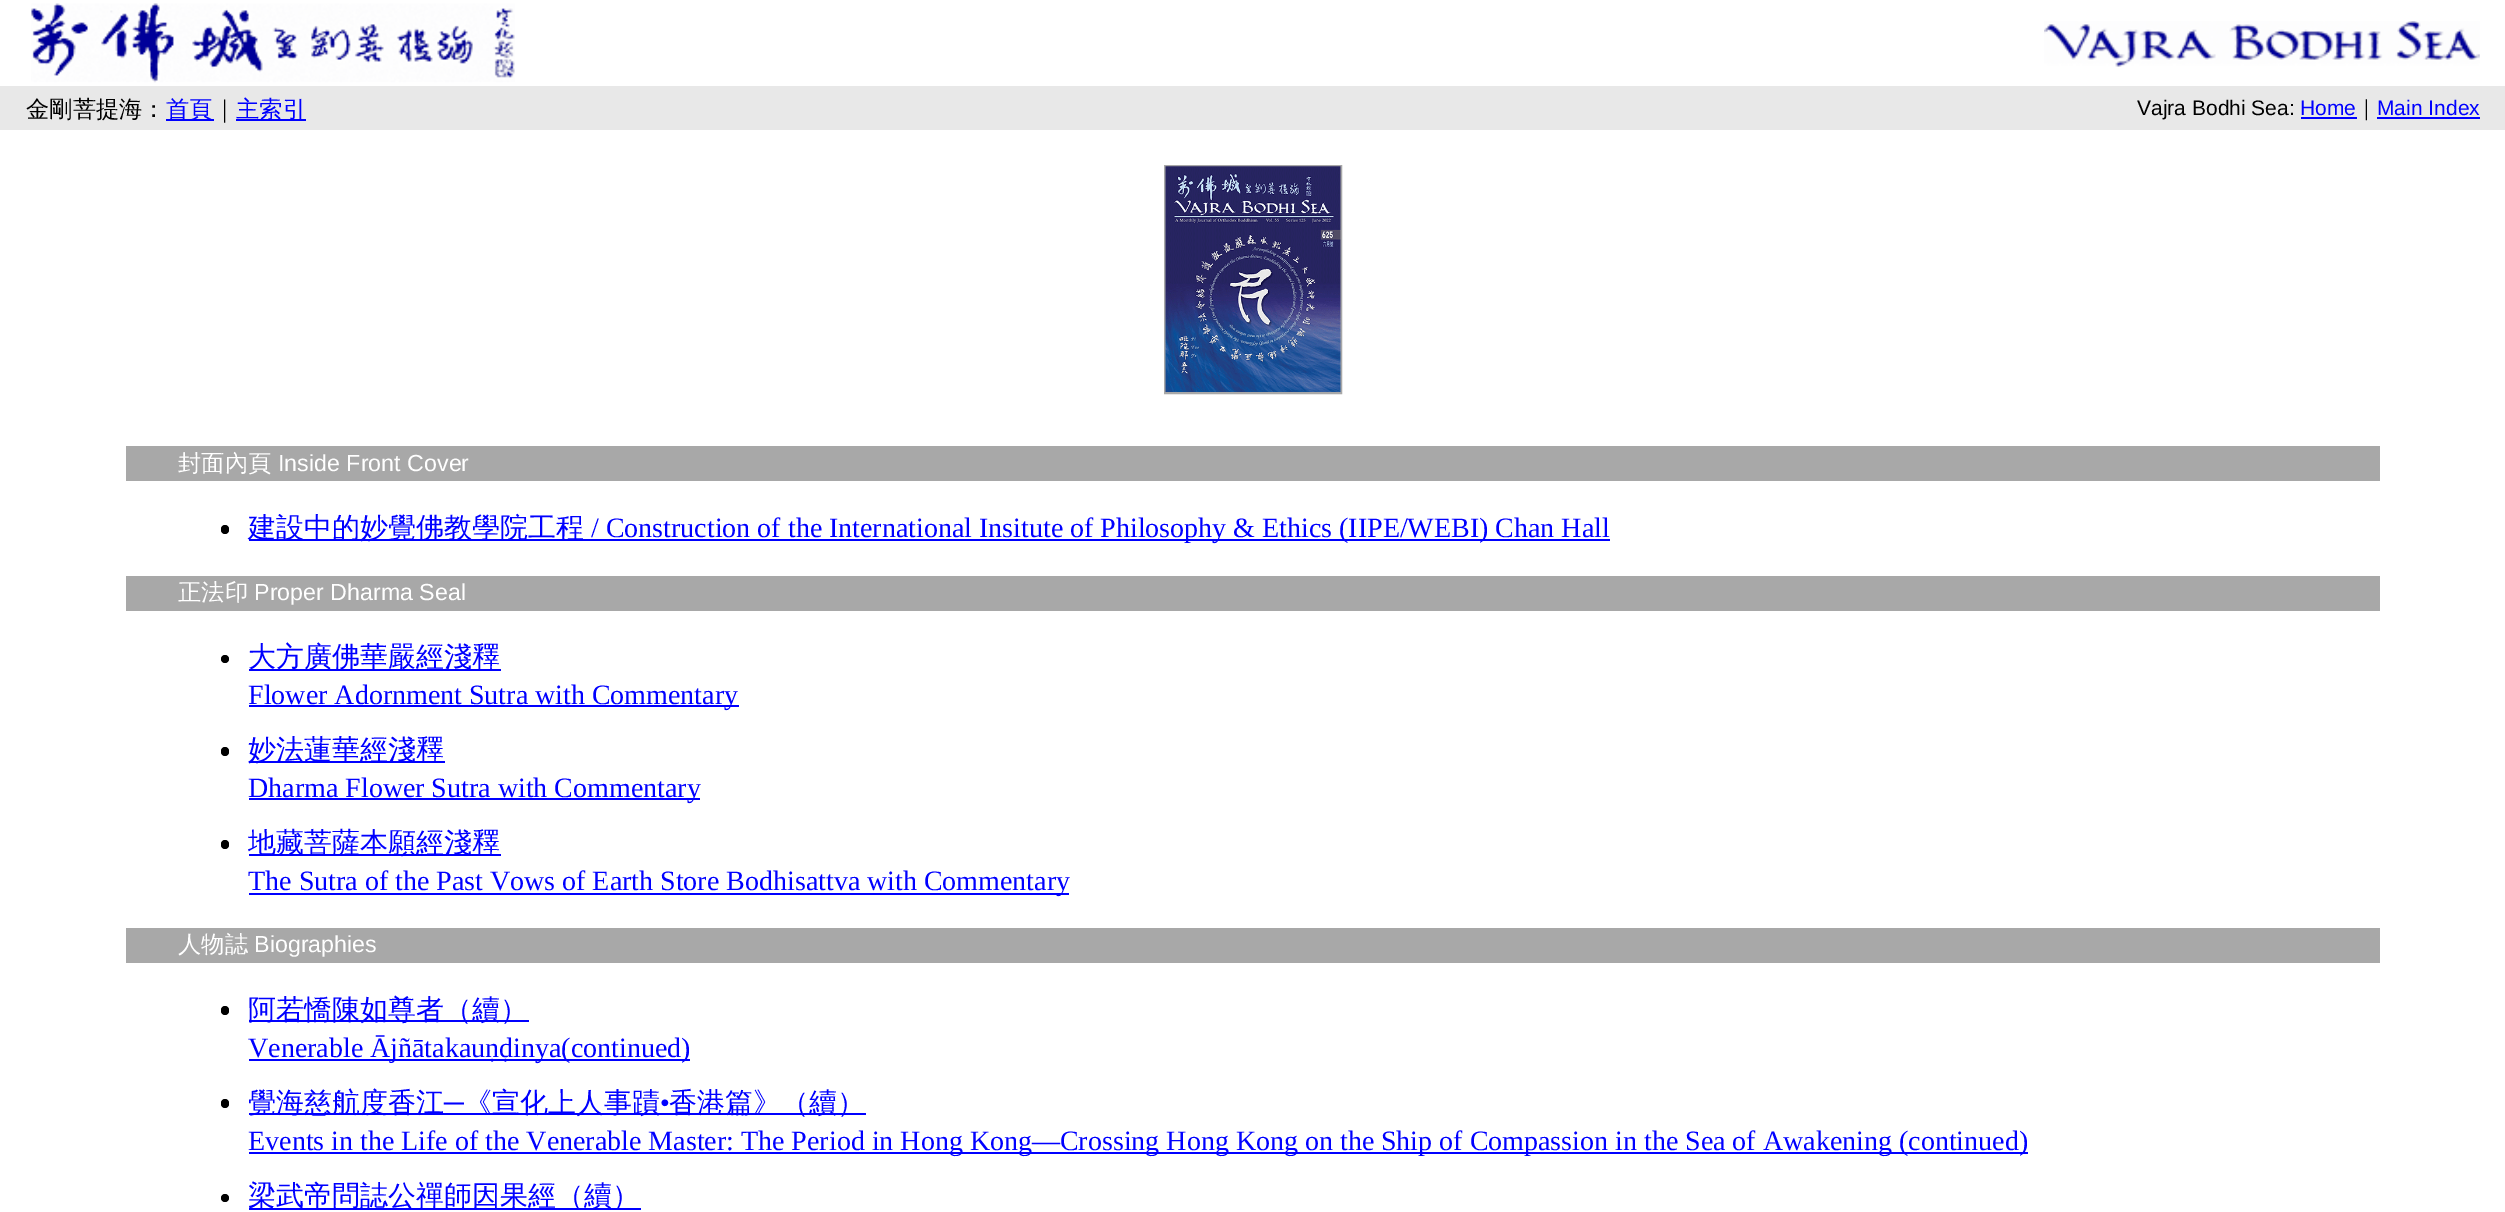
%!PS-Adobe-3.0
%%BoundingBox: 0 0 2505 1212
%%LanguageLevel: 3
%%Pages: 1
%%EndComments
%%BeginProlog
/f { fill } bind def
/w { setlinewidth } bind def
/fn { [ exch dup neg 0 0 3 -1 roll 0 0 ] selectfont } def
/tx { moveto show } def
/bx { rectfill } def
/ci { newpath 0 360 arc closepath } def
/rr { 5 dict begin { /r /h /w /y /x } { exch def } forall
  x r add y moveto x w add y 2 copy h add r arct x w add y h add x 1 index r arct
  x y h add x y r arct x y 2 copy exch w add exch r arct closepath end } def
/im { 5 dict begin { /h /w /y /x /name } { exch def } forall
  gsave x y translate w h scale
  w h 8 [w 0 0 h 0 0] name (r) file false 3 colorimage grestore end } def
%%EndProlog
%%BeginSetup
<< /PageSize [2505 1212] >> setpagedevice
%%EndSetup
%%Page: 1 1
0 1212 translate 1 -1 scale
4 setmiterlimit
1 setgray
0 0 2505 1212 bx
(image0.raw) 31 3 484 80 im
(image1.raw) 2044 21 436 46 im
0.91 setgray
0 86 2505 44 bx
/WenQuanYiZenHei-Medium 23.25 fn
0 setgray
(金剛菩提海：) 26 117 tx
0 0 1 setrgbcolor
166 119 48 2 bx
(首頁) 166 117 tx
0 setgray
(｜) 213 117 tx
0 0 1 setrgbcolor
236 119 70 2 bx
(主索引) 236 117 tx
/LiberationSans-Regular 21 fn
0 setgray
(Vajra Bodhi Sea:) 2137 115 tx
0 0 1 setrgbcolor
(Home) 2300 115 tx
2301 117 56 2 bx
/WenQuanYiZenHei-Medium 21 fn
0 setgray
(｜) 2356 115 tx
/LiberationSans-Regular 21 fn
0 0 1 setrgbcolor
(Main Index) 2377 115 tx
2377 117 103 2 bx
0.659 setgray
2 w
1165 166 176 227 rectstroke
(image2.raw) 1165 166 176 226 im
126 446 2254 35 bx
/WenQuanYiZenHei-Medium 23.25 fn
1 setgray
(封面內頁) 178 471 tx
/LiberationSans-Regular 23.25 fn
(Inside Front Cover) 278 471 tx
0 setgray
221 525 8 9 4 rr f
0 0 1 setrgbcolor
249 539 1361 2 bx
/WenQuanYiZenHei-Medium 28 fn
(建設中的妙覺佛教學院工程) 248 537 tx
/LiberationSerif-Regular 28 fn
(/ Construction of the International Insitute of Philosophy & Ethics \(IIPE/WEBI\) Chan Hall) 591 537 tx
0.659 setgray
126 576 2254 35 bx
/WenQuanYiZenHei-Medium 23.25 fn
1 setgray
(正法印) 178 600 tx
/LiberationSans-Regular 23.25 fn
(Proper Dharma Seal) 254 600 tx
0 setgray
225 659 4 ci f
0 0 1 setrgbcolor
249 669 252 2 bx
/WenQuanYiZenHei-Medium 28 fn
(大方廣佛華嚴經淺釋) 248 666 tx
249 705 490 2 bx
/LiberationSerif-Regular 28 fn
(Flower Adornment Sutra with Commentary) 248 704 tx
0 setgray
221 747 8 9 4 rr f
0 0 1 setrgbcolor
249 761 196 2 bx
/WenQuanYiZenHei-Medium 28 fn
(妙法蓮華經淺釋) 248 759 tx
249 798 451 2 bx
/LiberationSerif-Regular 28 fn
(Dharma Flower Sutra with Commentary) 248 797 tx
0 setgray
221 840 8 9 4 rr f
0 0 1 setrgbcolor
249 854 252 2 bx
/WenQuanYiZenHei-Medium 28 fn
(地藏菩薩本願經淺釋) 248 852 tx
249 893 820 2 bx
/LiberationSerif-Regular 28 fn
(The Sutra of the Past Vows of Earth Store Bodhisattva with Commentary) 248 890 tx
0.659 setgray
126 928 2254 35 bx
/WenQuanYiZenHei-Medium 23.25 fn
1 setgray
(人物誌) 178 952 tx
/LiberationSans-Regular 23.25 fn
(Biographies) 254 952 tx
0 setgray
221 1006 8 9 4 rr f
0 0 1 setrgbcolor
249 1020 280 2 bx
/WenQuanYiZenHei-Medium 28 fn
(阿若憍陳如尊者（續）) 248 1019 tx
249 1059 441 2 bx
/LiberationSerif-Regular 28 fn
(Venerable Ājñātakauṇḍinya\(continued\)) 248 1057 tx
0 setgray
221 1099 8 9 4 rr f
0 0 1 setrgbcolor
249 1113 617 2 bx
/WenQuanYiZenHei-Medium 28 fn
(覺海慈航度香江) 248 1112 tx
/LiberationSerif-Regular 28 fn
(─) 444 1112 tx
/WenQuanYiZenHei-Medium 28 fn
(《宣化上人事蹟) 464 1112 tx
/LiberationSerif-Regular 28 fn
(•) 660 1112 tx
/WenQuanYiZenHei-Medium 28 fn
(香港篇》（續）) 669 1112 tx
249 1152 1779 2 bx
/LiberationSerif-Regular 28 fn
(Events in the Life of the Venerable Master: The Period in Hong Kong—Crossing Hong Kong on the Ship of Compassion in the Sea of Awakening \(continued\)) 248 1150 tx
0 setgray
225 1198 4 ci f
0 0 1 setrgbcolor
249 1208 392 2 bx
/WenQuanYiZenHei-Medium 28 fn
(梁武帝問誌公禪師因果經（續）) 248 1205 tx
showpage
%%EOF
